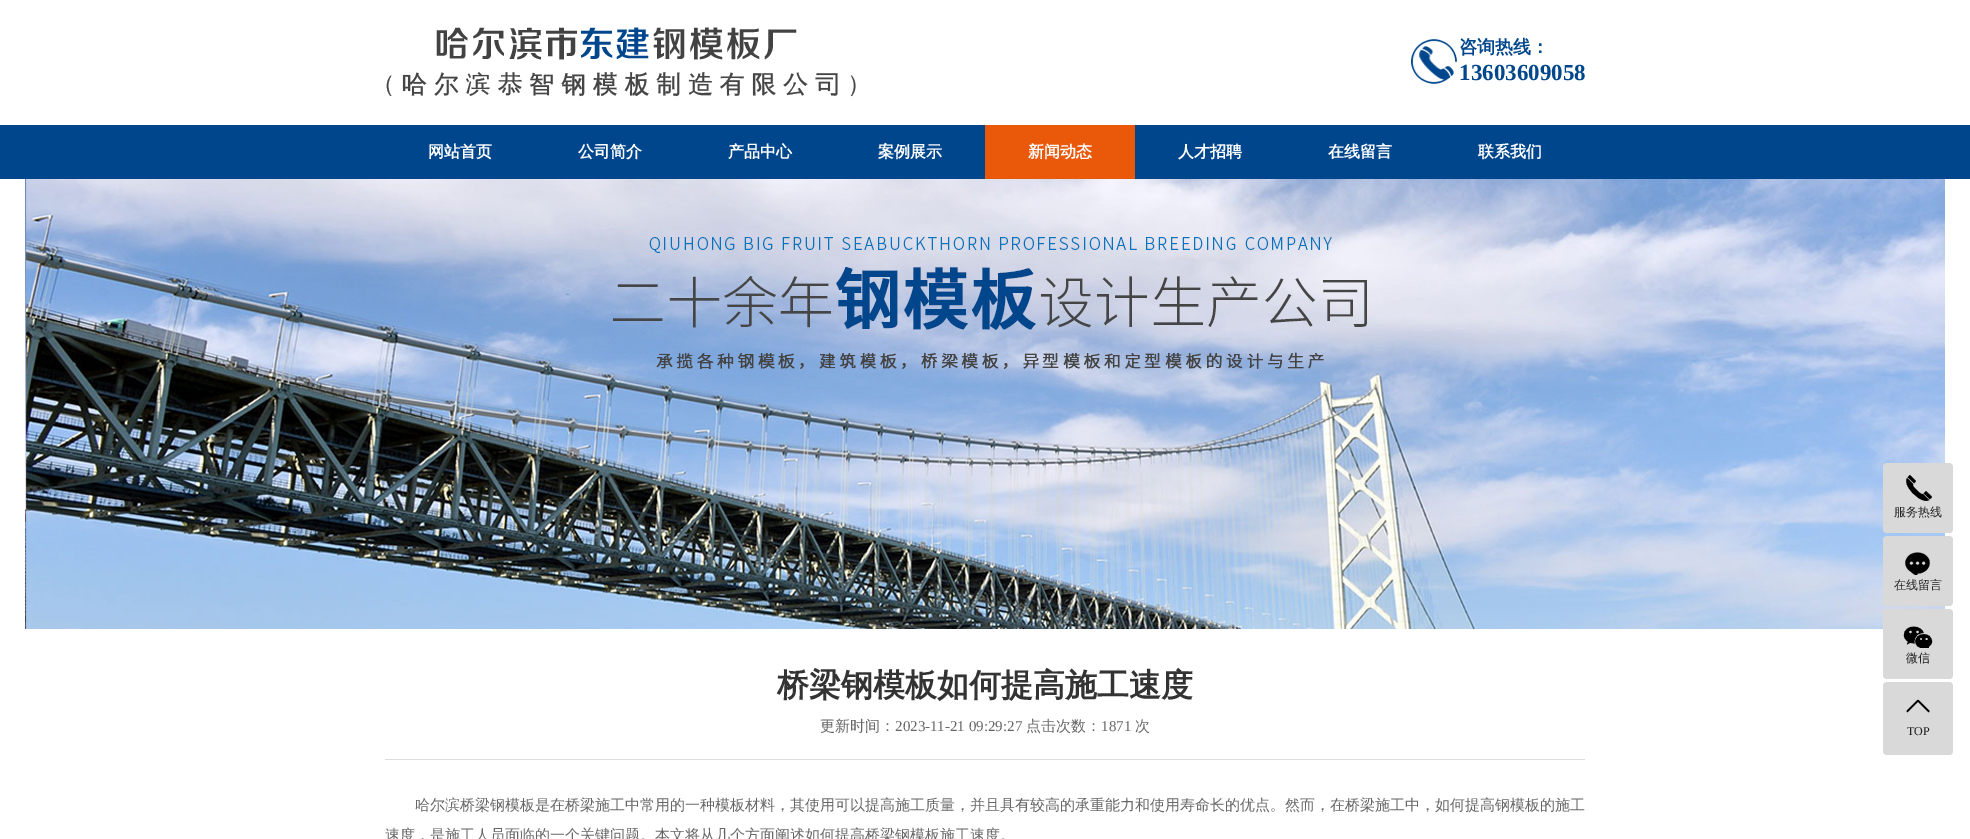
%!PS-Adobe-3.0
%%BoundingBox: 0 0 1970 839
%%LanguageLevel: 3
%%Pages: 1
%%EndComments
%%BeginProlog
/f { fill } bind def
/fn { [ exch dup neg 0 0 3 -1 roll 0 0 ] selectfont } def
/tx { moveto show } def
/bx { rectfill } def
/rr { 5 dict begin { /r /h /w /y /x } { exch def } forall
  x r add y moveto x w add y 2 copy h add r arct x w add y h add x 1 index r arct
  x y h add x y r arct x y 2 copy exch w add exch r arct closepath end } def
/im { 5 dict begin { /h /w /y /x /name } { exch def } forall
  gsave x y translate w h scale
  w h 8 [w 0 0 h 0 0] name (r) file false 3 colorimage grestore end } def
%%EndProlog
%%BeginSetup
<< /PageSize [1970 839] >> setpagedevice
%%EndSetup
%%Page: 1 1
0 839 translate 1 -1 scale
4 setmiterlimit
1 setgray
0 0 1970 839 bx
(image0.raw) 386 27 470 70 im
(image1.raw) 1411 39 46 45 im
/WenQuanYiZenHei-Bold 18 fn
0 0.275 0.549 setrgbcolor
(咨询热线：) 1459 53 tx
/LiberationSerif-Bold 23 fn
(13603609058) 1459 80 tx
0 125 1970 54 bx
/WenQuanYiZenHei-Bold 16 fn
1 setgray
(网站首页) 428 157 tx
(公司简介) 578 157 tx
(产品中心) 728 157 tx
(案例展示) 878 157 tx
0.918 0.349 0.039 setrgbcolor
985 125 150 54 bx
1 setgray
(新闻动态) 1028 157 tx
(人才招聘) 1178 157 tx
(在线留言) 1328 157 tx
(联系我们) 1478 157 tx
(image2.raw) 25 179 1920 450 im
0.851 setgray
1883 463 70 70 4 rr f
(image3.raw) 1906 475 26 26 im
/WenQuanYiZenHei-Medium 12 fn
0.133 setgray
(服务热线) 1894 516 tx
0.851 setgray
1883 536 70 70 4 rr f
(image4.raw) 1905 552 25 23 im
0.133 setgray
(在线留言) 1894 589 tx
0.851 setgray
1883 609 70 70 4 rr f
(image5.raw) 1903 626 30 22 im
0.133 setgray
(微信) 1906 662 tx
0.851 setgray
1883 682 70 73 4 rr f
(image6.raw) 1906 699 24 14 im
/LiberationSerif-Regular 12 fn
0.133 setgray
(TOP) 1907 735 tx
0.867 setgray
385 759 1200 1 bx
/WenQuanYiZenHei-Bold 32 fn
0.2 setgray
(桥梁钢模板如何提高施工速度) 777 696 tx
/WenQuanYiZenHei-Medium 15 fn
0.4 setgray
(更新时间：) 820 731 tx
/LiberationSerif-Regular 15 fn
(2023-11-21 09:29:27) 895 731 tx
/WenQuanYiZenHei-Medium 15 fn
(点击次数：) 1026 731 tx
/LiberationSerif-Regular 15 fn
(1871) 1101 731 tx
/WenQuanYiZenHei-Medium 15 fn
(次) 1135 731 tx
(哈尔滨桥梁钢模板是在桥梁施工中常用的一种模板材料，其使用可以提高施工质量，并且具有较高的承重能力和使用寿命长的优点。然而，在桥梁施工中，如何提高钢模板的施工) 415 810 tx
(速度，是施工人员面临的一个关键问题。本文将从几个方面阐述如何提高桥梁钢模板施工速度。) 385 840 tx
showpage
%%EOF
